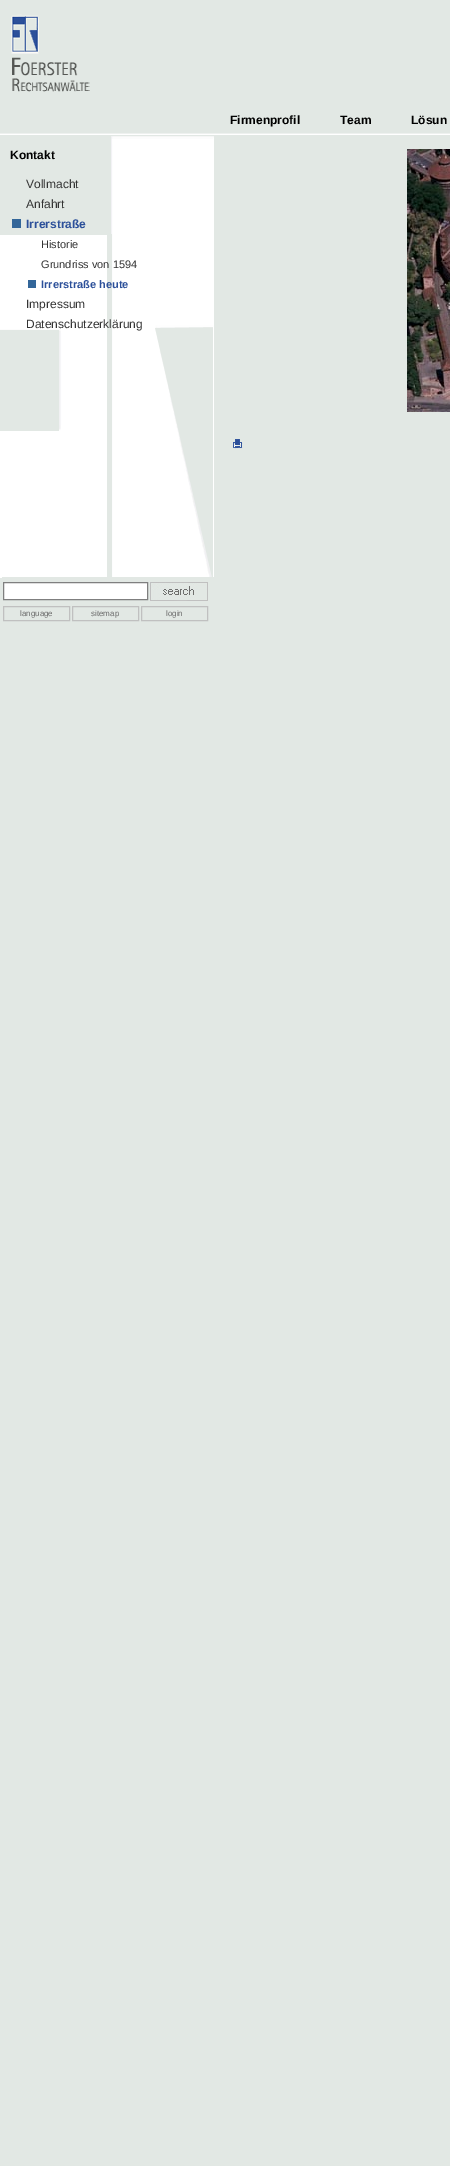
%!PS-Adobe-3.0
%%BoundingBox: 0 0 450 2166
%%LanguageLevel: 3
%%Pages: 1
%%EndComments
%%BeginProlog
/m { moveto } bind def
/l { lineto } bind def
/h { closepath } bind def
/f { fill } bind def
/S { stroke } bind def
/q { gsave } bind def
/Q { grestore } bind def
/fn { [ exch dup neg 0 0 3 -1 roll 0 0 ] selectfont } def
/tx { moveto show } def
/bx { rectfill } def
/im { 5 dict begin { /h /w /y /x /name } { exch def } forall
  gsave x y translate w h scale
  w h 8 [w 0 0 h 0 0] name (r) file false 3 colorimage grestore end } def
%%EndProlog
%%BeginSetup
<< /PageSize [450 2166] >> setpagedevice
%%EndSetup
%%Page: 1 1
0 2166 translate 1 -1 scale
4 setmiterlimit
0.886 0.91 0.894 setrgbcolor
0 0 450 2166 bx
(image0.raw) 0 136 214 442 im
(image1.raw) 0 133 450 2 im
(image2.raw) 11 14 79 78 im
/LiberationSans-Bold 12 fn
0 setgray
(Firmenprofil) 230 124 tx
(Team) 340 124 tx
(Lösun) 411 124 tx
(Kontakt) 10 159 tx
/LiberationSans-Regular 12 fn
0.2 setgray
(Vollmacht) 26 188 tx
(Anfahrt) 26 208 tx
0.2 0.4 0.6 setrgbcolor
12 219 9 9 bx
/LiberationSans-Bold 12 fn
0.173 0.314 0.604 setrgbcolor
(Irrerstraße) 26 228 tx
/LiberationSans-Regular 11 fn
0.2 setgray
(Historie) 41 248 tx
(Grundriss von 1594) 41 268 tx
0.2 0.4 0.6 setrgbcolor
28 280 8 8 bx
/LiberationSans-Bold 11 fn
0.173 0.314 0.604 setrgbcolor
(Irrerstraße heute) 41 288 tx
/LiberationSans-Regular 12 fn
0.2 setgray
(Impressum) 26 308 tx
(Datenschutzerklärung) 26 328 tx
(image3.raw) 407 149 43 263 im
(image4.raw) 233 439 10 10 im
1 setgray
3.5 582.5 m 147.5 582.5 l 147.5 599.5 l 3.5 599.5 l h q f Q
0.498 setgray
S
(image5.raw) 150 582 58 19 im
0.753 setgray
3.5 606.5 66 14 rectstroke
/LiberationSans-Regular 8 fn
0.435 setgray
(language) 20 616 tx
0.753 setgray
72.5 606.5 66 14 rectstroke
0.435 setgray
(sitemap) 91 616 tx
0.753 setgray
141.5 606.5 66 14 rectstroke
0.435 setgray
(login) 166 616 tx
showpage
%%EOF
